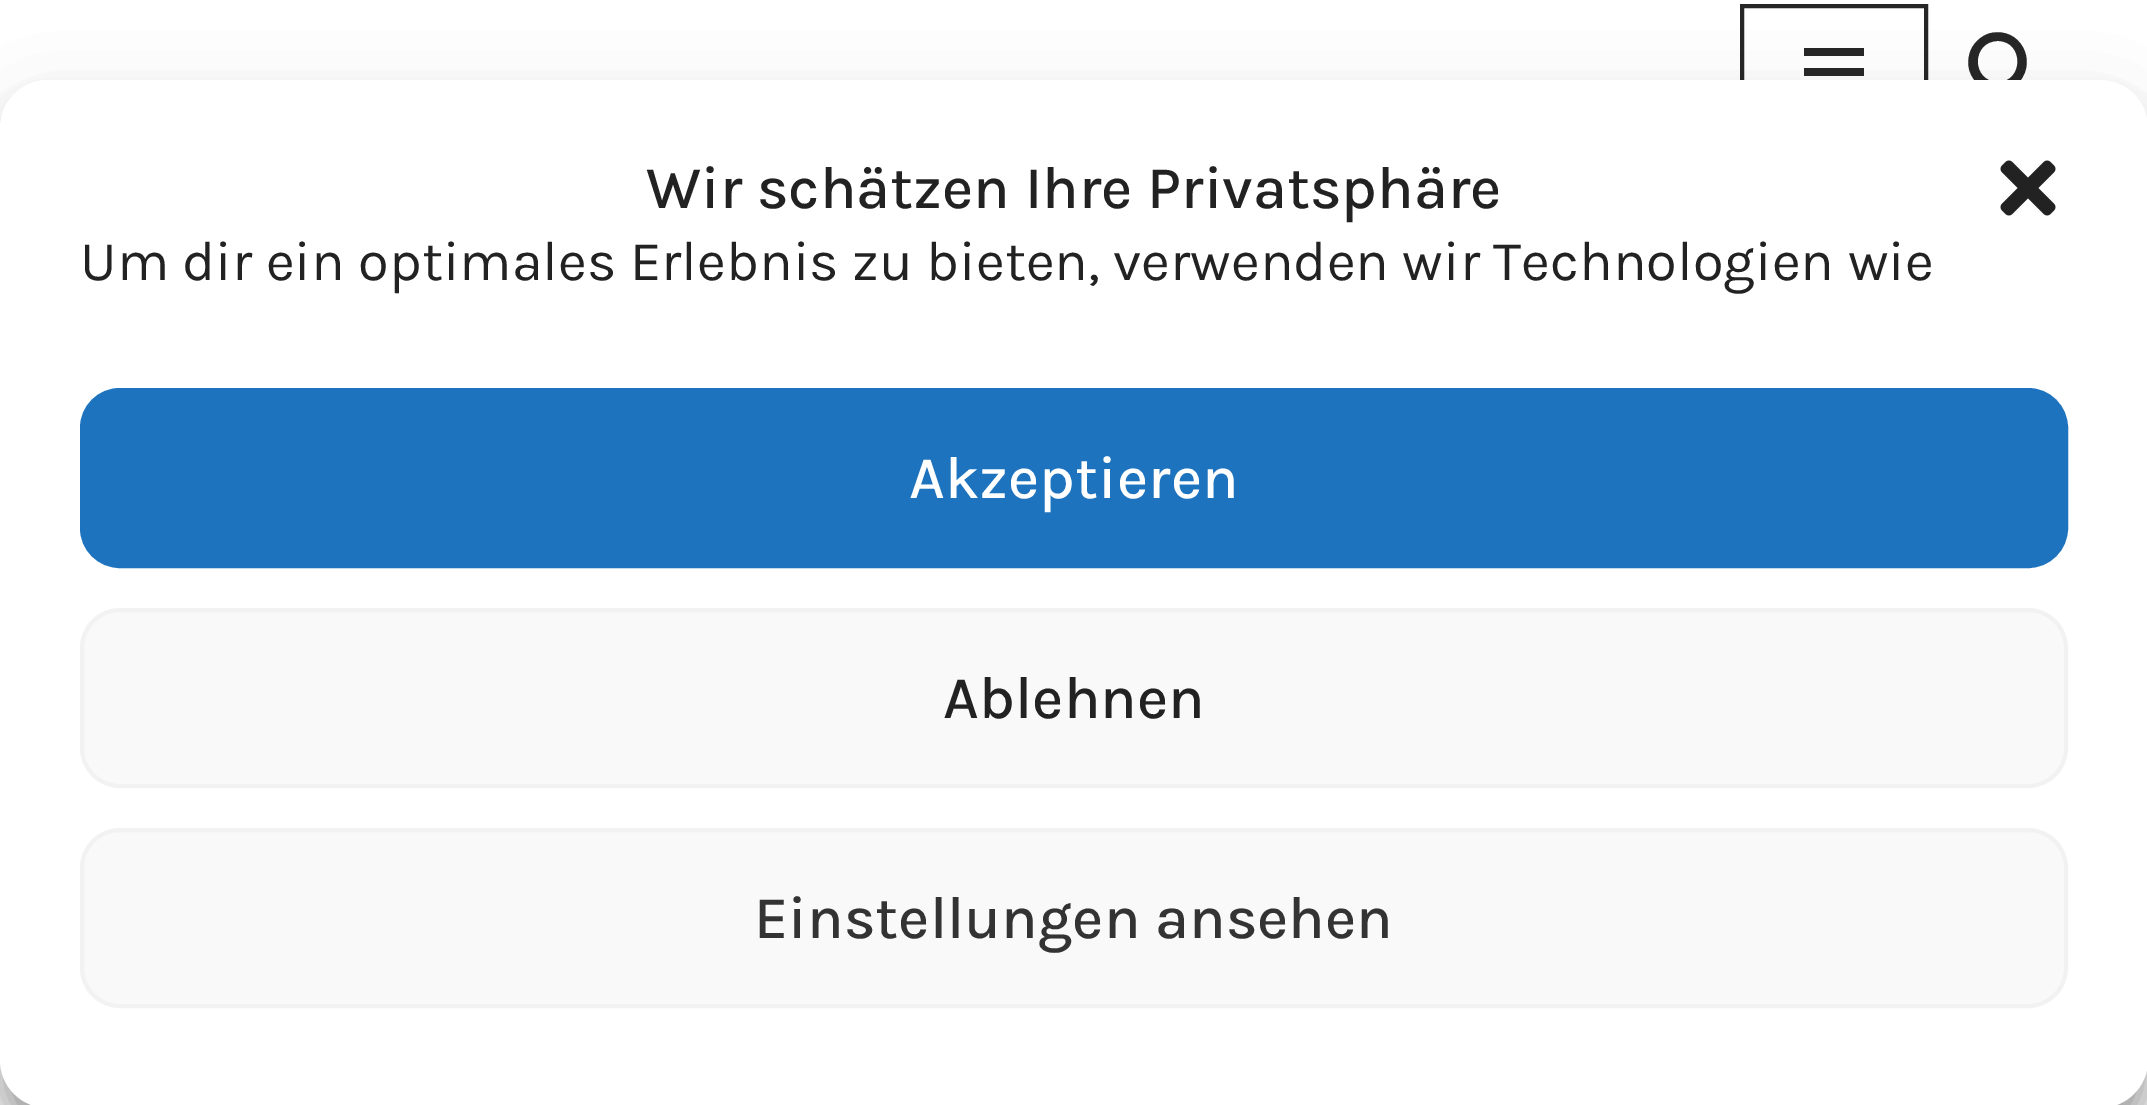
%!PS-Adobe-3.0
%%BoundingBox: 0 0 2147 1105
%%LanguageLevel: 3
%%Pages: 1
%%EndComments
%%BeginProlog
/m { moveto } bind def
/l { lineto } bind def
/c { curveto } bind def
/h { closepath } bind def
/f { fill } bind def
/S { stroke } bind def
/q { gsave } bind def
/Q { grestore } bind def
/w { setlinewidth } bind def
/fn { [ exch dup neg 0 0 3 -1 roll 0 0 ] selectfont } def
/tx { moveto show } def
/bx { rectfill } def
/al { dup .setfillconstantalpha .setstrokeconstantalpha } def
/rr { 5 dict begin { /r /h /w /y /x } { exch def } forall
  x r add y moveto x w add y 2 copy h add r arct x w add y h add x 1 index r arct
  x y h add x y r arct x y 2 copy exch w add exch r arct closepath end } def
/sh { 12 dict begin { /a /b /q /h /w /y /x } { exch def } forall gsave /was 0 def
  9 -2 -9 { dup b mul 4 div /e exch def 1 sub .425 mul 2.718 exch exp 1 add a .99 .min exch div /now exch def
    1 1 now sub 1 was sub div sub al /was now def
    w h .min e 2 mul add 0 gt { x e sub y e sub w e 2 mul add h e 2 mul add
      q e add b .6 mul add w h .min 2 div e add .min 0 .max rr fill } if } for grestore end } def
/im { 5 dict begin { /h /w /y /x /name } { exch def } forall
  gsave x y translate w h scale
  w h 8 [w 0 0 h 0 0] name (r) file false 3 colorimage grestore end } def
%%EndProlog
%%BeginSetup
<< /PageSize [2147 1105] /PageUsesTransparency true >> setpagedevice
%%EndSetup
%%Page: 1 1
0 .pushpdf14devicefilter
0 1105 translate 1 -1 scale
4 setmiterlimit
1 setgray
0 0 2147 1105 bx
0.153 0.149 0.149 setrgbcolor
4 w
1742 6 184 132 rectstroke
1804 48 60 8 bx
1804 68 60 8 bx
2025 82 m 2021 82 l 2020 81 l 2037 60 2020 27 1991 33 c 1986 34 1981 37 1977 41 c 1973 45 1970 50 1969 56 c 1963 84 1996 102 2017 84 c 2018 85 l 2018 89 l 2041 112 l 2048 105 l h 1998 82 m 1971 82 1971 41 1998 41 c 2024 41 2024 82 1998 82 c h f
0 setgray
0 104 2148 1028 48 12 0.23 sh
0 120 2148 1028 48 40 0.19 sh
1 setgray
0 80 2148 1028 48 rr f
/Karla-Medium 60 fn
0.133 setgray
(Wir schätzen Ihre Privatsphäre) 646 208 tx
(image0.raw) 2000 160 56 56 im
/Karla-Regular 56 fn
(Um dir ein optimales Erlebnis zu bieten, verwenden wir Technologien wie) 80 280 tx
0.118 0.451 0.745 setrgbcolor
82 390 1984 176 38 rr q f Q
S
/Karla-Medium 60 fn
1 setgray
(Akzeptieren) 909 498 tx
0.976 setgray
82 610 1984 176 38 rr q f Q
0.949 setgray
S
0.133 setgray
(Ablehnen) 943 718 tx
0.976 setgray
82 830 1984 176 38 rr q f Q
0.949 setgray
S
0.2 setgray
(Einstellungen ansehen) 754 938 tx
.poppdf14devicefilter showpage
%%EOF
